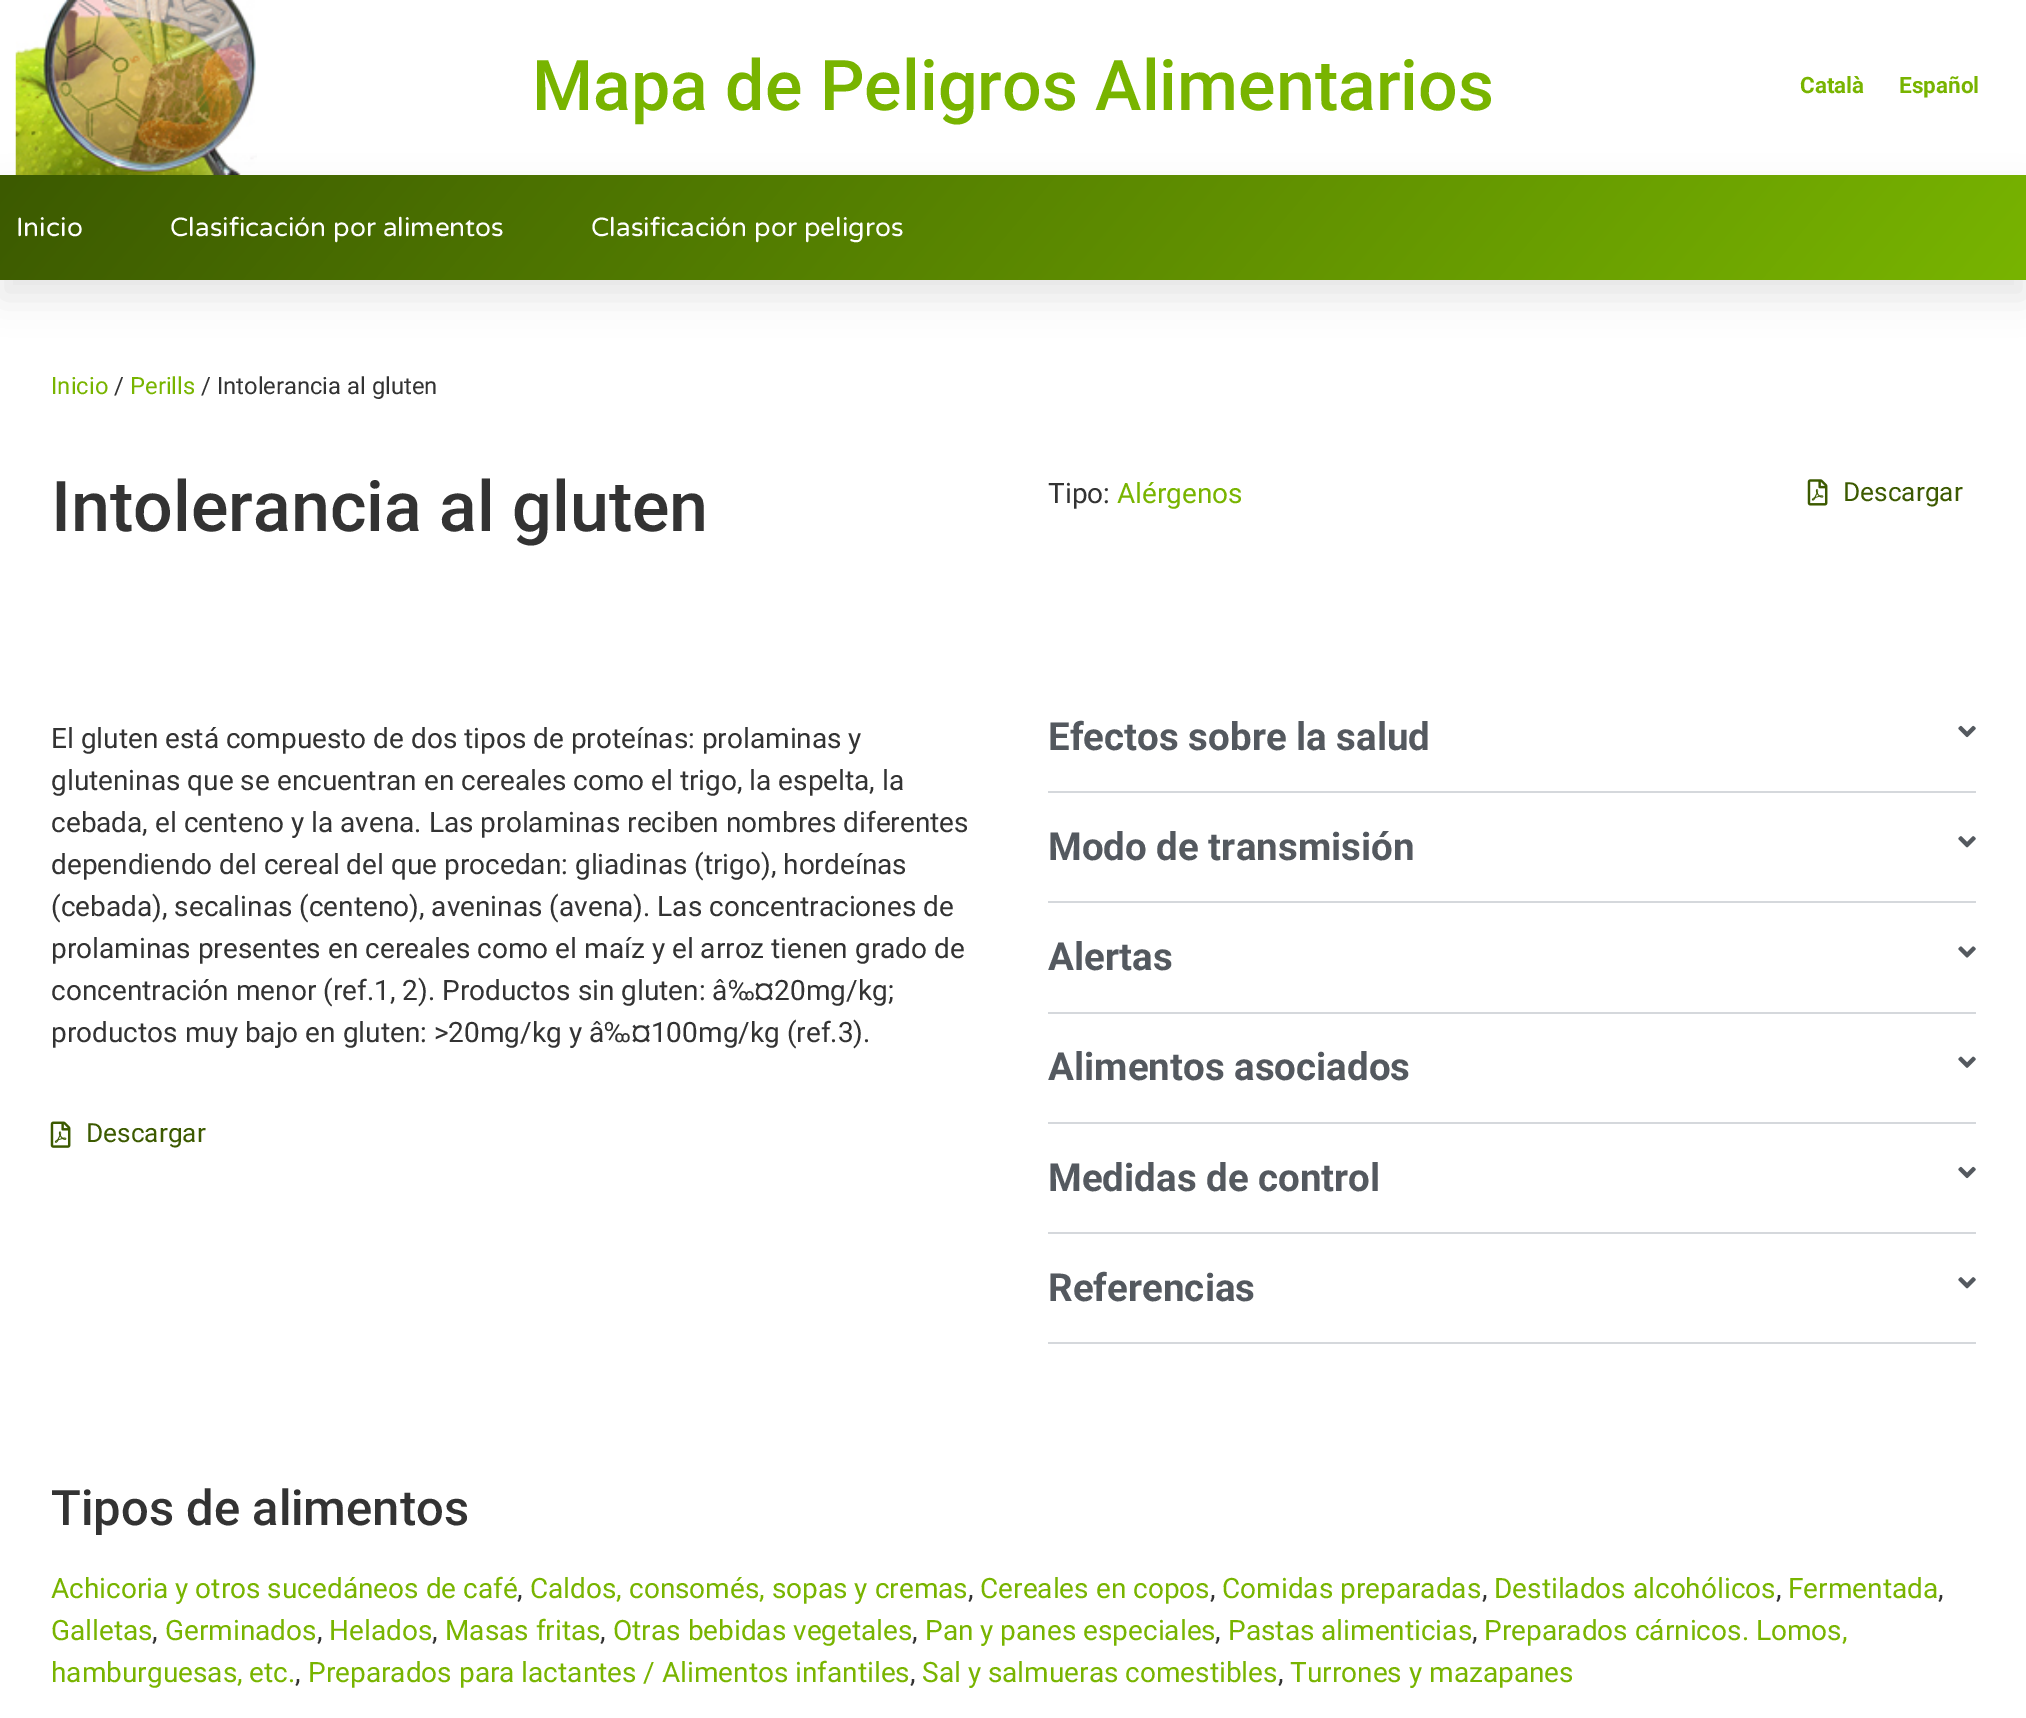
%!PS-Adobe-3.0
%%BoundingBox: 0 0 2026 1718
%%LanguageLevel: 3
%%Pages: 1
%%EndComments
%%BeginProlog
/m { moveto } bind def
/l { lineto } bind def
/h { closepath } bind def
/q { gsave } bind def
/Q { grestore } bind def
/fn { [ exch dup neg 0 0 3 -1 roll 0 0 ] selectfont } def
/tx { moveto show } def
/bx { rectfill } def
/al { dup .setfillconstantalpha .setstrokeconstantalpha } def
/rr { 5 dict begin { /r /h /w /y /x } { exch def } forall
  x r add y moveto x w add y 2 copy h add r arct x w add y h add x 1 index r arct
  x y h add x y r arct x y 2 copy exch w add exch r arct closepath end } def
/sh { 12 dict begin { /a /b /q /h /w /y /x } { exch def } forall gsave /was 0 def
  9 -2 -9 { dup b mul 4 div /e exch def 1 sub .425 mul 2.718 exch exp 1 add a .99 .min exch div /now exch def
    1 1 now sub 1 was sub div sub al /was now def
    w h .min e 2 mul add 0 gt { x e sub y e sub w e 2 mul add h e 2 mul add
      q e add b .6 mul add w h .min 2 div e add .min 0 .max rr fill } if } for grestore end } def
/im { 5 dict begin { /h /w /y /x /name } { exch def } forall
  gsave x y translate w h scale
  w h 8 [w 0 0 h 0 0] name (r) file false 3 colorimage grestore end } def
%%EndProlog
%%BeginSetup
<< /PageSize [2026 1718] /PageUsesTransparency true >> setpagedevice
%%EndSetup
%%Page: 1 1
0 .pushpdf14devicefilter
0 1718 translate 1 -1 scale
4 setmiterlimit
1 setgray
0 0 2026 1718 bx
(image0.raw) 15 0 242 175 im
/Roboto-Medium 70 fn
0.471 0.706 0 setrgbcolor
(Mapa de Peligros Alimentarios) 532 110 tx
/Roboto-Bold 22.5 fn
(Català) 1800 93 tx
(Español) 1899 93 tx
0 setgray
0 193 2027 105 0 17.5 0.1 sh
q 0 175 m 2026 175 l 2026 280 l 0 280 l h clip newpath
<< /ShadingType 2 /ColorSpace /DeviceRGB /Coords [393 -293 1634 748] /Extend [true true] /Function << /FunctionType 2 /Domain [0 1] /C0 [0.235 0.353 0] /C1 [0.471 0.706 0] /N 1 >> >> shfill Q
/VarelaRound-Regular 26.25 fn
1 setgray
(Inicio) 16 236 tx
(Clasificación por alimentos) 170 236 tx
(Clasificación por peligros) 591 236 tx
/Roboto-Regular 23.75 fn
0.471 0.706 0 setrgbcolor
(Inicio) 51 394 tx
0.2 setgray
(/) 114 394 tx
0.471 0.706 0 setrgbcolor
(Perills) 130 394 tx
0.2 setgray
(/ Intolerancia al gluten) 201 394 tx
/Roboto-Medium 70 fn
(Intolerancia al gluten) 51 531 tx
/Roboto-Regular 28 fn
(Tipo:) 1048 503 tx
0.471 0.706 0 setrgbcolor
(Alérgenos) 1117 503 tx
(image1.raw) 1807 479 21 27 im
/Roboto-Regular 26.25 fn
0.235 0.353 0 setrgbcolor
(Descargar) 1843 501 tx
/Roboto-Regular 28 fn
0.2 setgray
(El gluten está compuesto de dos tipos de proteínas: prolaminas y) 51 748 tx
(gluteninas que se encuentran en cereales como el trigo, la espelta, la) 51 790 tx
(cebada, el centeno y la avena. Las prolaminas reciben nombres diferentes) 51 832 tx
(dependiendo del cereal del que procedan: gliadinas \(trigo\), hordeínas) 51 874 tx
(\(cebada\), secalinas \(centeno\), aveninas \(avena\). Las concentraciones de) 51 916 tx
(prolaminas presentes en cereales como el maíz y el arroz tienen grado de) 51 958 tx
(concentración menor \(ref.1, 2\). Productos sin gluten: â‰¤20mg/kg;) 51 1000 tx
(productos muy bajo en gluten: >20mg/kg y â‰¤100mg/kg \(ref.3\).) 51 1042 tx
(image2.raw) 50 1121 21 27 im
/Roboto-Regular 26.25 fn
0.235 0.353 0 setrgbcolor
(Descargar) 86 1142 tx
0.835 0.847 0.863 setrgbcolor
1048 791 928 2 bx
/Roboto-Bold 38.5 fn
0.329 0.349 0.373 setrgbcolor
(Efectos sobre la salud) 1048 750 tx
(image3.raw) 1958 725 18 13 im
0.835 0.847 0.863 setrgbcolor
1048 901 928 2 bx
0.329 0.349 0.373 setrgbcolor
(Modo de transmisión) 1048 860 tx
(image4.raw) 1958 836 18 12 im
0.835 0.847 0.863 setrgbcolor
1048 1012 928 2 bx
0.329 0.349 0.373 setrgbcolor
(Alertas) 1048 970 tx
(image5.raw) 1958 946 18 12 im
0.835 0.847 0.863 setrgbcolor
1048 1122 928 2 bx
0.329 0.349 0.373 setrgbcolor
(Alimentos asociados) 1048 1080 tx
(image6.raw) 1958 1056 18 12 im
0.835 0.847 0.863 setrgbcolor
1048 1232 928 2 bx
0.329 0.349 0.373 setrgbcolor
(Medidas de control) 1048 1191 tx
(image3.raw) 1958 1166 18 13 im
0.835 0.847 0.863 setrgbcolor
1048 1342 928 2 bx
0.329 0.349 0.373 setrgbcolor
(Referencias) 1048 1301 tx
(image4.raw) 1958 1277 18 12 im
/Roboto-Medium 49 fn
0.2 setgray
(Tipos de alimentos) 51 1525 tx
/Roboto-Regular 28 fn
0.471 0.706 0 setrgbcolor
(Achicoria y otros sucedáneos de café) 51 1598 tx
0.2 setgray
(,) 517 1598 tx
0.471 0.706 0 setrgbcolor
(Caldos, consomés, sopas y cremas) 530 1598 tx
0.2 setgray
(,) 968 1598 tx
0.471 0.706 0 setrgbcolor
(Cereales en copos) 980 1598 tx
0.2 setgray
(,) 1210 1598 tx
0.471 0.706 0 setrgbcolor
(Comidas preparadas) 1222 1598 tx
0.2 setgray
(,) 1482 1598 tx
0.471 0.706 0 setrgbcolor
(Destilados alcohólicos) 1494 1598 tx
0.2 setgray
(,) 1776 1598 tx
0.471 0.706 0 setrgbcolor
(Fermentada) 1788 1598 tx
0.2 setgray
(,) 1938 1598 tx
0.471 0.706 0 setrgbcolor
(Galletas) 51 1640 tx
0.2 setgray
(,) 152 1640 tx
0.471 0.706 0 setrgbcolor
(Germinados) 165 1640 tx
0.2 setgray
(,) 317 1640 tx
0.471 0.706 0 setrgbcolor
(Helados) 329 1640 tx
0.2 setgray
(,) 432 1640 tx
0.471 0.706 0 setrgbcolor
(Masas fritas) 445 1640 tx
0.2 setgray
(,) 600 1640 tx
0.471 0.706 0 setrgbcolor
(Otras bebidas vegetales) 613 1640 tx
0.2 setgray
(,) 912 1640 tx
0.471 0.706 0 setrgbcolor
(Pan y panes especiales) 925 1640 tx
0.2 setgray
(,) 1215 1640 tx
0.471 0.706 0 setrgbcolor
(Pastas alimenticias) 1228 1640 tx
0.2 setgray
(,) 1472 1640 tx
0.471 0.706 0 setrgbcolor
(Preparados cárnicos. Lomos,) 1484 1640 tx
(hamburguesas, etc.) 51 1682 tx
0.2 setgray
(,) 295 1682 tx
0.471 0.706 0 setrgbcolor
(Preparados para lactantes / Alimentos infantiles) 308 1682 tx
0.2 setgray
(,) 910 1682 tx
0.471 0.706 0 setrgbcolor
(Sal y salmueras comestibles) 922 1682 tx
0.2 setgray
(,) 1278 1682 tx
0.471 0.706 0 setrgbcolor
(Turrones y mazapanes) 1290 1682 tx
.poppdf14devicefilter showpage
%%EOF
